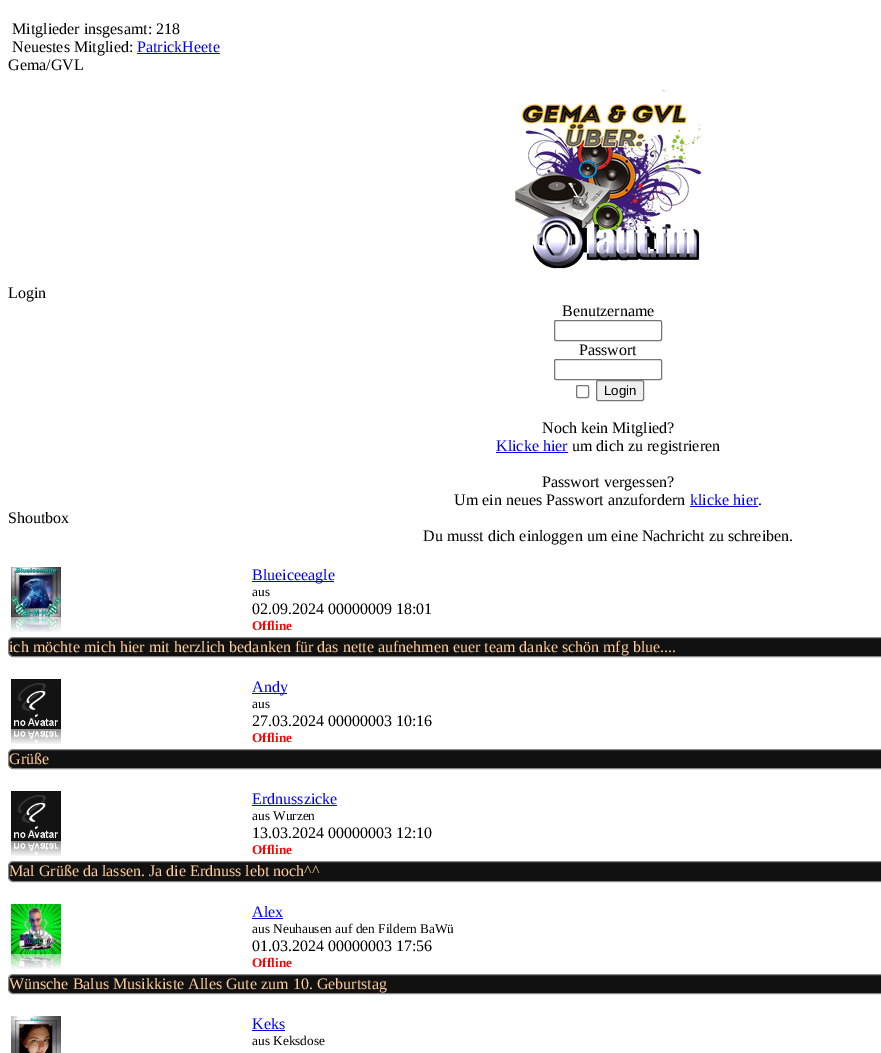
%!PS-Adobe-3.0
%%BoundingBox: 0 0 881 1053
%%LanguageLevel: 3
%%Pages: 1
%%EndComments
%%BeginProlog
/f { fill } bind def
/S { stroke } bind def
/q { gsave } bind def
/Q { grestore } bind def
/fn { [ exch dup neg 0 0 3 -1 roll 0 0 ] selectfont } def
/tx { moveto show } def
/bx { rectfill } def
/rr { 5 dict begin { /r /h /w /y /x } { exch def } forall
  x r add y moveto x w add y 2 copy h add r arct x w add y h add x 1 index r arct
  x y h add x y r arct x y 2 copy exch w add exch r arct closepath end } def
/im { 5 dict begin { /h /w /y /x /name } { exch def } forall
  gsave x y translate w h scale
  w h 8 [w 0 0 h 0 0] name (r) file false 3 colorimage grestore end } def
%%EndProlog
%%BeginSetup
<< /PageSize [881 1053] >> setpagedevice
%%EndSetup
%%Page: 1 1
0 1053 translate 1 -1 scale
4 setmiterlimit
1 setgray
0 0 881 1053 bx
/LiberationSerif-Regular 16 fn
0 setgray
(Mitglieder insgesamt: 218) 12 34 tx
(Neuestes Mitglied:) 12 52 tx
0 0 0.933 setrgbcolor
(PatrickHeete) 137 52 tx
137 53 83 1 bx
0 setgray
(Gema/GVL) 8 70 tx
(image0.raw) 515 84 187 185 im
(Login) 8 298 tx
(Benutzername) 562 316 tx
0.463 setgray
554.5 320.5 107 20 1.5 rr S
0 setgray
(Passwort) 579 355 tx
0.463 setgray
554.5 359.5 107 20 1.5 rr S
576.5 385.5 12 12 1.5 rr S
0.937 setgray
596.5 380.5 47 20 1.5 rr q f Q
0.463 setgray
S
/LiberationSans-Regular 13.3 fn
0 setgray
(Login) 604 395 tx
/LiberationSerif-Regular 16 fn
(Noch kein Mitglied?) 542 433 tx
0 0 0.933 setrgbcolor
(Klicke hier) 496 451 tx
496 452 72 1 bx
0 setgray
(um dich zu registrieren) 572 451 tx
(Passwort vergessen?) 542 487 tx
(Um ein neues Passwort anzufordern) 454 505 tx
0 0 0.933 setrgbcolor
(klicke hier) 690 505 tx
690 506 68 1 bx
0 setgray
(.) 758 505 tx
(Shoutbox) 8 523 tx
(Du musst dich einloggen um eine Nachricht zu schreiben.) 423 541 tx
(image1.raw) 11 567 50 50 im
(image2.raw) 11 617 50 15 im
0 0 0.933 setrgbcolor
252 581 82 1 bx
(Blueiceeagle) 252 580 tx
/LiberationSerif-Regular 13.3 fn
0 setgray
(aus) 252 596 tx
/LiberationSerif-Regular 16 fn
(02.09.2024 00000009 18:01) 252 614 tx
/LiberationSerif-Bold 13.3 fn
1 0 0 setrgbcolor
(Offline) 252 630 tx
0.067 setgray
8.5 637.5 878 19 4.5 rr q f Q
0.533 setgray
S
/LiberationSerif-Regular 16 fn
1 0.8 0.6 setrgbcolor
(ich möchte mich hier mit herzlich bedanken für das nette aufnehmen euer team danke schön mfg blue....) 9 652 tx
(image3.raw) 11 679 50 50 im
(image4.raw) 11 729 50 15 im
0 0 0.933 setrgbcolor
252 693 35 1 bx
(Andy) 252 692 tx
/LiberationSerif-Regular 13.3 fn
0 setgray
(aus) 252 708 tx
/LiberationSerif-Regular 16 fn
(27.03.2024 00000003 10:16) 252 726 tx
/LiberationSerif-Bold 13.3 fn
1 0 0 setrgbcolor
(Offline) 252 742 tx
0.067 setgray
8.5 749.5 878 19 4.5 rr q f Q
0.533 setgray
S
/LiberationSerif-Regular 16 fn
1 0.8 0.6 setrgbcolor
(Grüße) 9 764 tx
(image3.raw) 11 791 50 50 im
(image4.raw) 11 841 50 15 im
0 0 0.933 setrgbcolor
(Erdnusszicke) 252 804 tx
252 805 85 1 bx
/LiberationSerif-Regular 13.3 fn
0 setgray
(aus Wurzen) 252 820 tx
/LiberationSerif-Regular 16 fn
(13.03.2024 00000003 12:10) 252 838 tx
/LiberationSerif-Bold 13.3 fn
1 0 0 setrgbcolor
(Offline) 252 854 tx
0.067 setgray
8.5 861.5 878 20 4.5 rr q f Q
0.533 setgray
S
/LiberationSerif-Regular 16 fn
1 0.8 0.6 setrgbcolor
(Mal Grüße da lassen. Ja die Erdnuss lebt noch^^) 9 876 tx
(image5.raw) 11 904 50 50 im
(image6.raw) 11 954 50 15 im
0 0 0.933 setrgbcolor
(Alex) 252 917 tx
252 918 31 1 bx
/LiberationSerif-Regular 13.3 fn
0 setgray
(aus Neuhausen auf den Fildern BaWü) 252 933 tx
/LiberationSerif-Regular 16 fn
(01.03.2024 00000003 17:56) 252 951 tx
/LiberationSerif-Bold 13.3 fn
1 0 0 setrgbcolor
(Offline) 252 967 tx
0.067 setgray
8.5 974.5 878 19 4.5 rr q f Q
0.533 setgray
S
/LiberationSerif-Regular 16 fn
1 0.8 0.6 setrgbcolor
(Wünsche Balus Musikkiste Alles Gute zum 10. Geburtstag) 9 989 tx
(image7.raw) 11 1016 50 37 im
0 0 0.933 setrgbcolor
(Keks) 252 1029 tx
252 1030 33 1 bx
/LiberationSerif-Regular 13.3 fn
0 setgray
(aus Keksdose) 252 1045 tx
showpage
%%EOF
